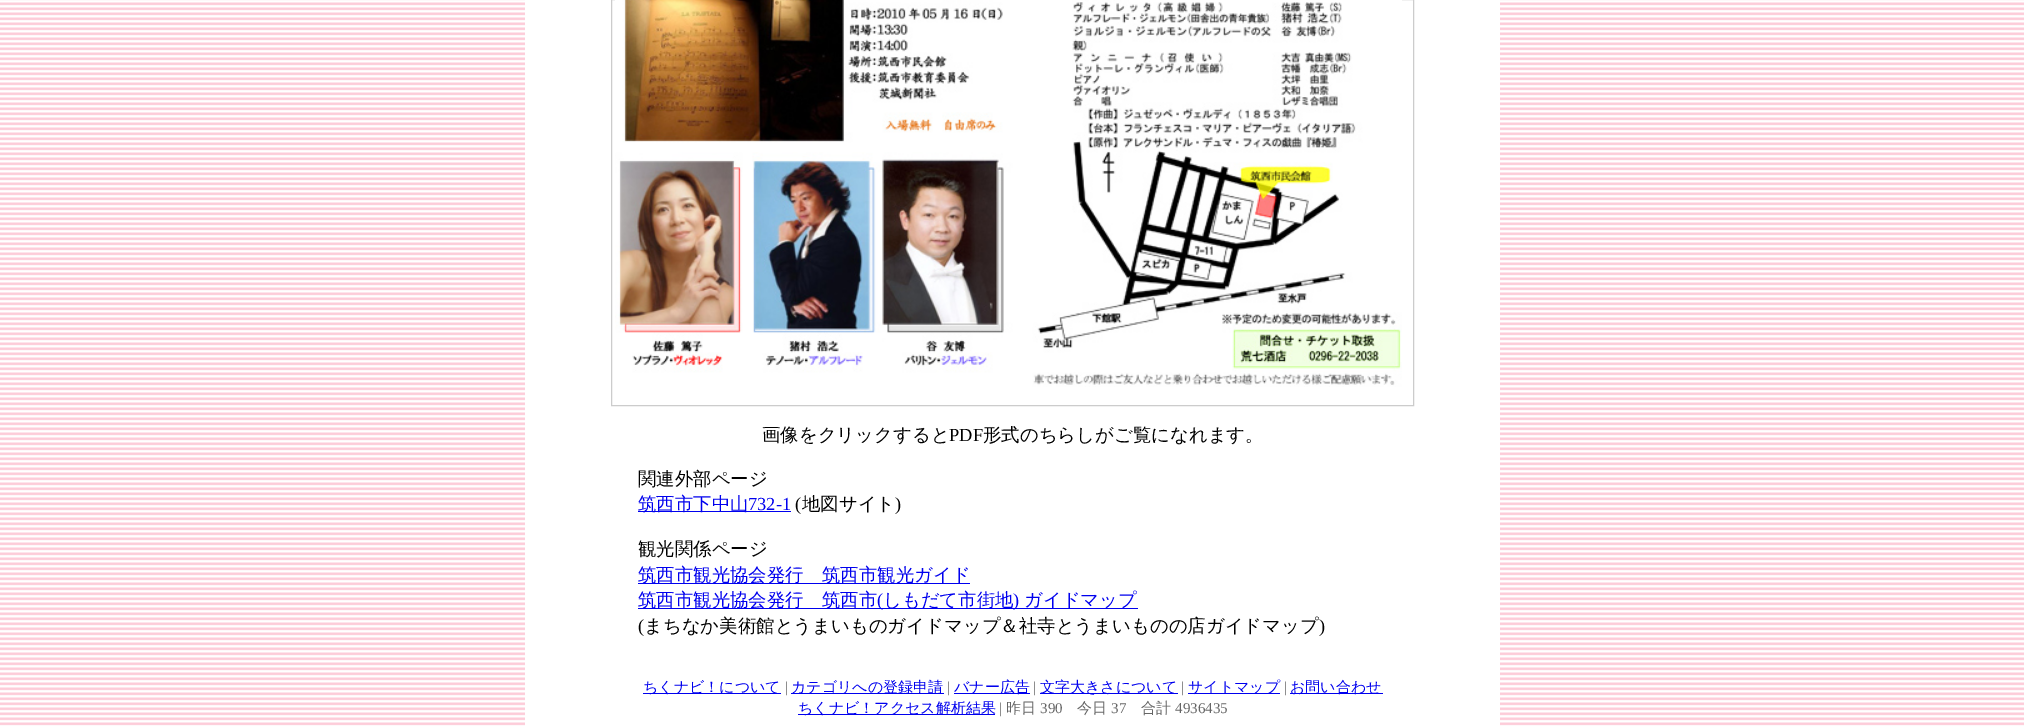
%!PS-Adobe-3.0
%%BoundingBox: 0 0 2024 726
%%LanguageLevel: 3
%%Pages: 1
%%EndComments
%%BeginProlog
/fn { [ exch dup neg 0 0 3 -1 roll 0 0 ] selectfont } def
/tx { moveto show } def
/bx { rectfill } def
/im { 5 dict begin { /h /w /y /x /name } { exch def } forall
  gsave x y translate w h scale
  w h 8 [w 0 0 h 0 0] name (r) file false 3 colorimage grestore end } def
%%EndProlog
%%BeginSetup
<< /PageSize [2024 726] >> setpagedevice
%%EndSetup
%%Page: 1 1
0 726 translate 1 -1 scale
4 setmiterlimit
1 setgray
0 0 2024 726 bx
(image0.raw) 0 0 2024 726 im
525 0 975 726 bx
0.8 setgray
611.5 -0.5 802 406 rectstroke
(image1.raw) 615 0 787 387 im
/WenQuanYiZenHei-Medium 18.4 fn
0 setgray
(画像をクリックすると) 762 441 tx
/LiberationSerif-Regular 18.4 fn
(PDF) 949 441 tx
/WenQuanYiZenHei-Medium 18.4 fn
(形式のちらしがご覧になれます。) 983 441 tx
(関連外部ページ) 638 485 tx
0 0 0.933 setrgbcolor
638 511 153 1 bx
(筑西市下中山) 638 510 tx
/LiberationSerif-Regular 18.4 fn
(732-1) 748 510 tx
0 setgray
(\() 795 510 tx
/WenQuanYiZenHei-Medium 18.4 fn
(地図サイト) 802 510 tx
/LiberationSerif-Regular 18.4 fn
(\)) 895 510 tx
/WenQuanYiZenHei-Medium 18.4 fn
(観光関係ページ) 638 555 tx
0 0 0.933 setrgbcolor
638 583 332 1 bx
(筑西市観光協会発行　筑西市観光ガイド) 638 581 tx
638 608 500 1 bx
(筑西市観光協会発行　筑西市) 638 606 tx
/LiberationSerif-Regular 18.4 fn
(\() 877 606 tx
/WenQuanYiZenHei-Medium 18.4 fn
(しもだて市街地) 883 606 tx
/LiberationSerif-Regular 18.4 fn
(\)) 1013 606 tx
/WenQuanYiZenHei-Medium 18.4 fn
(ガイドマップ) 1024 606 tx
/LiberationSerif-Regular 18.4 fn
0 setgray
(\() 638 632 tx
/WenQuanYiZenHei-Medium 18.4 fn
(まちなか美術館とうまいものガイドマップ＆社寺とうまいものの店ガイドマップ) 644 632 tx
/LiberationSerif-Regular 18.4 fn
(\)) 1319 632 tx
0 0 0.933 setrgbcolor
643 693 138 1 bx
/WenQuanYiZenHei-Medium 15 fn
(ちくナビ！について) 643 692 tx
/LiberationSerif-Regular 15 fn
0.4 setgray
(|) 785 692 tx
0 0 0.933 setrgbcolor
791 693 153 1 bx
/WenQuanYiZenHei-Medium 15 fn
(カテゴリへの登録申請) 791 692 tx
/LiberationSerif-Regular 15 fn
0.4 setgray
(|) 947 692 tx
0 0 0.933 setrgbcolor
954 693 76 1 bx
/WenQuanYiZenHei-Medium 15 fn
(バナー広告) 954 692 tx
/LiberationSerif-Regular 15 fn
0.4 setgray
(|) 1033 692 tx
0 0 0.933 setrgbcolor
1040 693 138 1 bx
/WenQuanYiZenHei-Medium 15 fn
(文字大きさについて) 1040 692 tx
/LiberationSerif-Regular 15 fn
0.4 setgray
(|) 1181 692 tx
0 0 0.933 setrgbcolor
1188 693 92 1 bx
/WenQuanYiZenHei-Medium 15 fn
(サイトマップ) 1188 692 tx
/LiberationSerif-Regular 15 fn
0.4 setgray
(|) 1284 692 tx
0 0 0.933 setrgbcolor
1290 693 93 1 bx
/WenQuanYiZenHei-Medium 15 fn
(お問い合わせ) 1290 692 tx
798 714 197 1 bx
(ちくナビ！アクセス解析結果) 798 713 tx
/LiberationSerif-Regular 15 fn
0.4 setgray
(|) 999 713 tx
/WenQuanYiZenHei-Medium 15 fn
(昨日) 1006 713 tx
/LiberationSerif-Regular 15 fn
(390) 1040 713 tx
/WenQuanYiZenHei-Medium 15 fn
(今日) 1077 713 tx
/LiberationSerif-Regular 15 fn
(37) 1111 713 tx
/WenQuanYiZenHei-Medium 15 fn
(合計) 1141 713 tx
/LiberationSerif-Regular 15 fn
(4936435) 1175 713 tx
showpage
%%EOF
